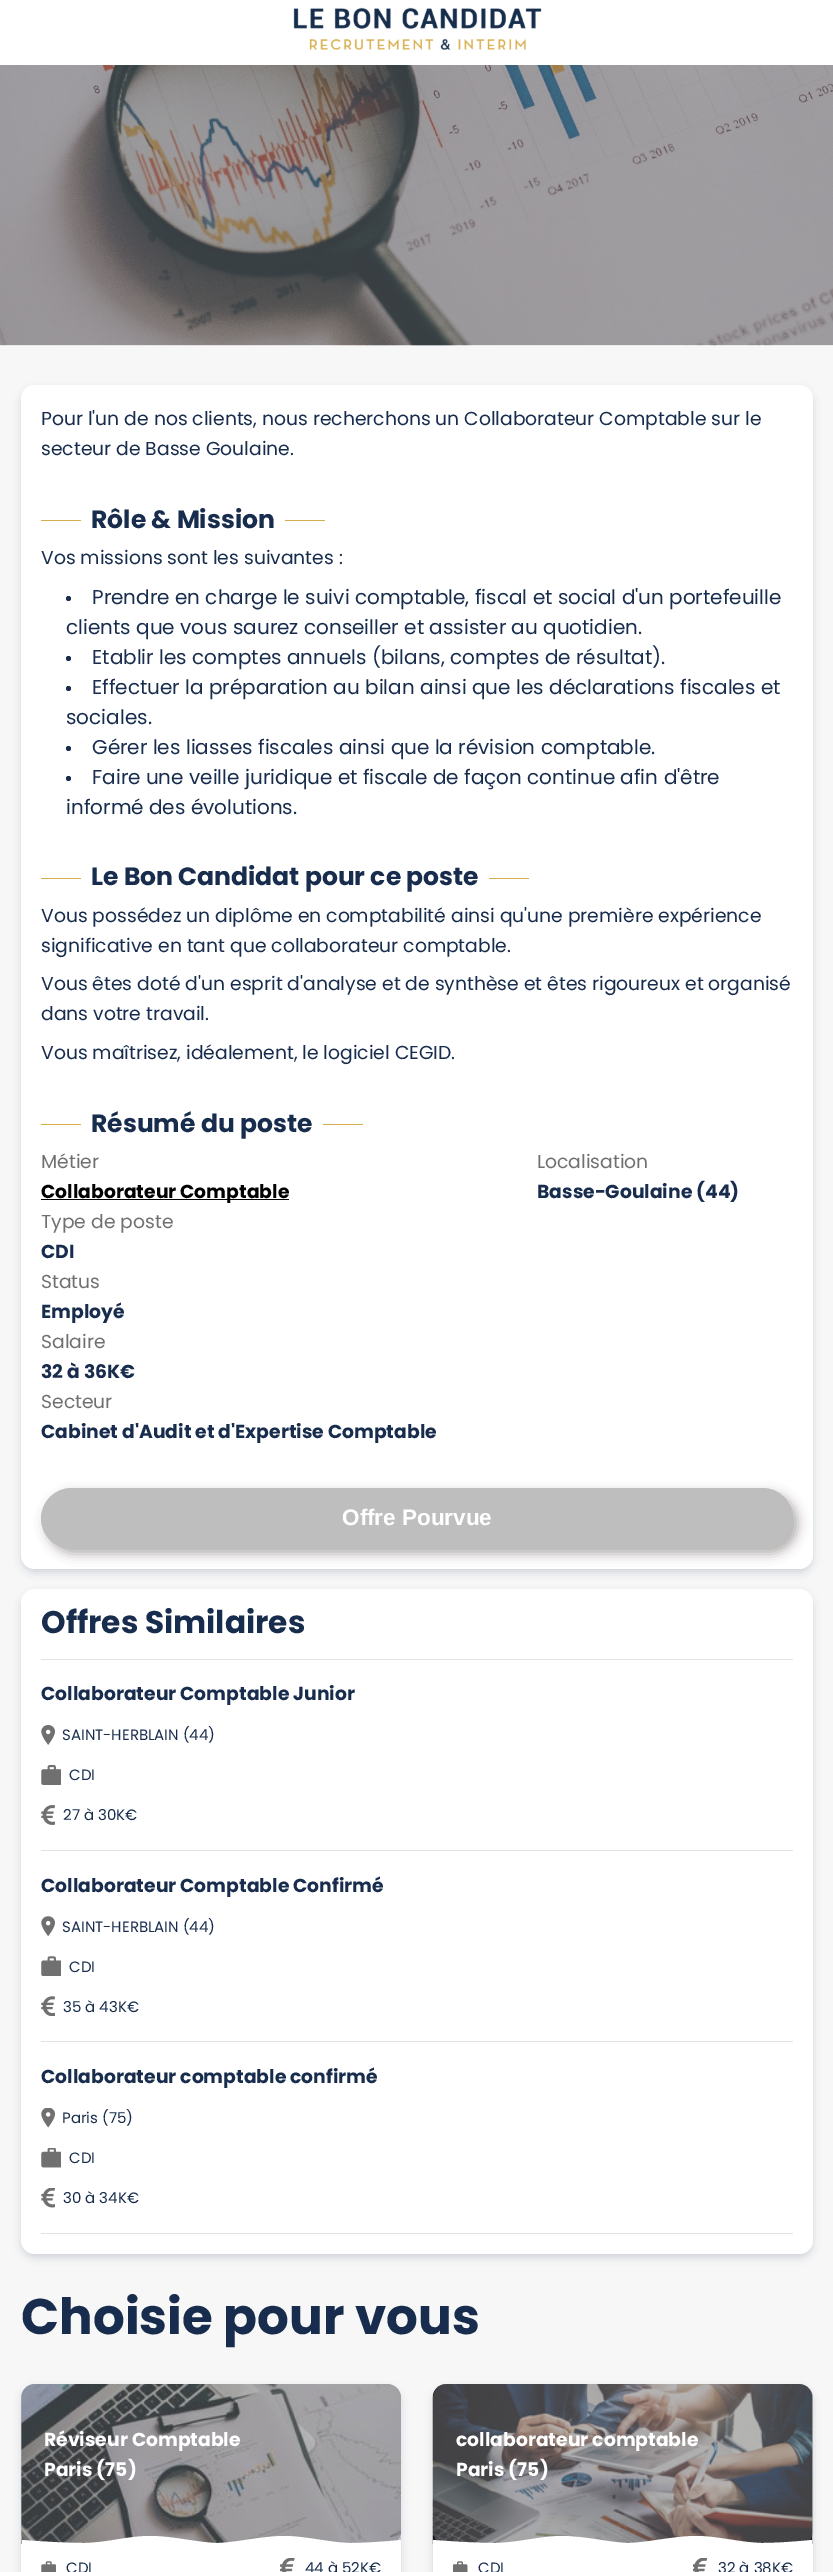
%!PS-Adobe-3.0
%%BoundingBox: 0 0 833 2572
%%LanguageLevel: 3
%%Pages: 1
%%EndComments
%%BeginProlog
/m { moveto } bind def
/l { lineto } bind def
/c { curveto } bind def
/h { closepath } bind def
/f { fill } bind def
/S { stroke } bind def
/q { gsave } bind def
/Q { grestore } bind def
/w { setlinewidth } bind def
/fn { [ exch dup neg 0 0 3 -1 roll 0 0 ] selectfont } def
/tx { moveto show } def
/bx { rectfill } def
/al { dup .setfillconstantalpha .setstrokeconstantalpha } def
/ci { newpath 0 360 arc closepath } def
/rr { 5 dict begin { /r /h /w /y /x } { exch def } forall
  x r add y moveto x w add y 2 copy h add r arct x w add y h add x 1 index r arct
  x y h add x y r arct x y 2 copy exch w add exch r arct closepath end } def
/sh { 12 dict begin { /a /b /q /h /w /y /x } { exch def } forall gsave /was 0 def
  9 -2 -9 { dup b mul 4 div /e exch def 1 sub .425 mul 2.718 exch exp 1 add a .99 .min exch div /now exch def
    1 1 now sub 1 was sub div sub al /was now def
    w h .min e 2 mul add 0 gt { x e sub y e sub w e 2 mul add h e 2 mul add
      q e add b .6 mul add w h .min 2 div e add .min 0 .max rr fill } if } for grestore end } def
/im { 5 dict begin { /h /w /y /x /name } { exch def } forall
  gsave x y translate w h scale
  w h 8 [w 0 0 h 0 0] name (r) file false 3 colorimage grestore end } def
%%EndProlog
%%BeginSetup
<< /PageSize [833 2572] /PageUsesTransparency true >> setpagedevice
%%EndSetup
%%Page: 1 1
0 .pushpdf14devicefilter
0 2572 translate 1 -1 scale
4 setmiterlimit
0.969 setgray
0 0 833 2572 bx
1 setgray
0 0 833 65 bx
(image0.raw) 293 7 249 43 im
(image1.raw) 0 65 833 281 im
0.094 0.176 0.302 setrgbcolor
21 389 792 1184 14 4 0.16 sh
1 setgray
21 385 792 1184 14 rr f
/Poppins-Regular 18.75 fn
0.094 0.176 0.302 setrgbcolor
(Pour l'un de nos clients, nous recherchons un Collaborateur Comptable sur le) 41 425 tx
(secteur de Basse Goulaine.) 41 455 tx
0.839 0.682 0.31 setrgbcolor
41 520 40 1 0.5 rr f
/Poppins-Bold 25 fn
0.094 0.176 0.302 setrgbcolor
(Rôle & Mission) 91 528 tx
0.839 0.682 0.31 setrgbcolor
285 520 40 1 0.5 rr f
/Poppins-Regular 18.75 fn
0.094 0.176 0.302 setrgbcolor
(Vos missions sont les suivantes :) 41 564 tx
68.5 598.5 2.5 ci f
/Poppins-Regular 20 fn
(Prendre en charge le suivi comptable, fiscal et social d'un portefeuille) 92 604 tx
(clients que vous saurez conseiller et assister au quotidien.) 66 634 tx
68.5 658.5 2.5 ci f
(Etablir les comptes annuels \(bilans, comptes de résultat\).) 92 664 tx
68.5 688.5 2.5 ci f
(Effectuer la préparation au bilan ainsi que les déclarations fiscales et) 92 694 tx
(sociales.) 66 724 tx
68.5 748.5 2.5 ci f
(Gérer les liasses fiscales ainsi que la révision comptable.) 92 754 tx
68.5 778.5 2.5 ci f
(Faire une veille juridique et fiscale de façon continue afin d'être) 92 784 tx
(informé des évolutions.) 66 814 tx
0.839 0.682 0.31 setrgbcolor
41 878 40 1 0.5 rr f
/Poppins-Bold 25 fn
0.094 0.176 0.302 setrgbcolor
(Le Bon Candidat pour ce poste) 91 885 tx
0.839 0.682 0.31 setrgbcolor
489 878 40 1 0.5 rr f
/Poppins-Regular 18.75 fn
0.094 0.176 0.302 setrgbcolor
(Vous possédez un diplôme en comptabilité ainsi qu'une première expérience) 41 922 tx
(significative en tant que collaborateur comptable.) 41 952 tx
(Vous êtes doté d'un esprit d'analyse et de synthèse et êtes rigoureux et organisé) 41 990 tx
(dans votre travail.) 41 1020 tx
(Vous maîtrisez, idéalement, le logiciel CEGID.) 41 1059 tx
0.839 0.682 0.31 setrgbcolor
41 1124 40 1 0.5 rr f
/Poppins-Bold 25 fn
0.094 0.176 0.302 setrgbcolor
(Résumé du poste) 91 1132 tx
0.839 0.682 0.31 setrgbcolor
323 1124 40 1 0.5 rr f
/Poppins-Regular 18.75 fn
0.439 setgray
(Métier) 41 1168 tx
0 setgray
41 1199 248 1 bx
/Poppins-Bold 18.75 fn
(Collaborateur Comptable) 41 1198 tx
/Poppins-Regular 18.75 fn
0.439 setgray
(Type de poste) 41 1228 tx
/Poppins-Bold 18.75 fn
0.094 0.176 0.302 setrgbcolor
(CDI) 41 1258 tx
/Poppins-Regular 18.75 fn
0.439 setgray
(Status) 41 1288 tx
/Poppins-Bold 18.75 fn
0.094 0.176 0.302 setrgbcolor
(Employé) 41 1318 tx
/Poppins-Regular 18.75 fn
0.439 setgray
(Salaire) 41 1348 tx
/Poppins-Bold 18.75 fn
0.094 0.176 0.302 setrgbcolor
(32 à 36K€) 41 1378 tx
/Poppins-Regular 18.75 fn
0.439 setgray
(Secteur) 41 1408 tx
/Poppins-Bold 18.75 fn
0.094 0.176 0.302 setrgbcolor
(Cabinet d'Audit et d'Expertise Comptable) 41 1438 tx
/Poppins-Regular 18.75 fn
0.439 setgray
(Localisation) 537 1168 tx
/Poppins-Bold 18.75 fn
0.094 0.176 0.302 setrgbcolor
(Basse-Goulaine \(44\)) 537 1198 tx
0.169 0.137 0.137 setrgbcolor
46 1493 752 61 30.5 5.5 0.35 sh
0.745 setgray
42.5 1489.5 749 58 29 rr q f Q
3 w
S
/LiberationSans-Bold 22.5 fn
1 setgray
(Offre Pourvue) 342 1525 tx
0.094 0.176 0.302 setrgbcolor
21 1593 792 665 14 4 0.16 sh
1 setgray
21 1589 792 665 14 rr f
0.886 setgray
41 1659 752 1 bx
/Poppins-Bold 31.25 fn
0.094 0.176 0.302 setrgbcolor
(Offres Similaires) 41 1633 tx
0.886 setgray
41 1850 752 1 bx
/Poppins-Bold 18.75 fn
0.094 0.176 0.302 setrgbcolor
(Collaborateur Comptable Junior) 41 1700 tx
(image2.raw) 41 1725 14 20 im
/Poppins-Regular 15 fn
(SAINT-HERBLAIN \(44\)) 62 1740 tx
(image3.raw) 41 1765 20 20 im
(CDI) 69 1780 tx
(image4.raw) 41 1805 14 20 im
(27 à 30K€) 63 1820 tx
0.886 setgray
41 2041 752 1 bx
/Poppins-Bold 18.75 fn
0.094 0.176 0.302 setrgbcolor
(Collaborateur Comptable Confirmé) 41 1892 tx
(image5.raw) 41 1916 14 20 im
/Poppins-Regular 15 fn
(SAINT-HERBLAIN \(44\)) 62 1932 tx
(image6.raw) 41 1956 20 20 im
(CDI) 69 1972 tx
(image7.raw) 41 1996 14 20 im
(35 à 43K€) 63 2012 tx
0.886 setgray
41 2233 752 1 bx
/Poppins-Bold 18.75 fn
0.094 0.176 0.302 setrgbcolor
(Collaborateur comptable confirmé) 41 2083 tx
(image8.raw) 41 2108 14 20 im
/Poppins-Regular 15 fn
(Paris \(75\)) 62 2123 tx
(image9.raw) 41 2148 20 20 im
(CDI) 69 2163 tx
(image10.raw) 41 2188 14 20 im
(30 à 34K€) 63 2203 tx
/Poppins-Bold 50 fn
(Choisie pour vous) 21 2334 tx
21 2388 380 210 14 4 0.16 sh
1 setgray
21 2384 380 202 14 rr f
(image11.raw) 21 2384 381 160 im
0.5 al
0.439 setgray
21 2384 380 161 14 rr f
/Poppins-Bold 18.75 fn
1 al
1 setgray
(Réviseur Comptable) 44 2446 tx
(Paris \(75\)) 44 2476 tx
401 2540 m 401 2540 372 2543 351 2543 c 331 2543 306 2536 284 2536 c 262 2536 234 2543 217 2543 c 200 2543 173 2536 150 2536 c 127 2536 107 2543 83 2543 c 59 2543 22 2540 22 2540 c 22 2549 l 401 2549 l h f
(image12.raw) 41 2561 15 11 im
/Poppins-Regular 15 fn
0.094 0.176 0.302 setrgbcolor
(CDI) 66 2573 tx
(image13.raw) 280 2558 15 14 im
(44 à 52K€) 305 2573 tx
433 2388 380 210 14 4 0.16 sh
1 setgray
433 2384 380 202 14 rr f
(image14.raw) 432 2384 381 160 im
0.5 al
0.439 setgray
433 2384 380 161 14 rr f
/Poppins-Bold 18.75 fn
1 al
1 setgray
(collaborateur comptable) 456 2446 tx
(Paris \(75\)) 456 2476 tx
812 2540 m 812 2540 783 2543 763 2543 c 742 2543 718 2536 696 2536 c 674 2536 645 2543 628 2543 c 612 2543 585 2536 562 2536 c 539 2536 518 2543 494 2543 c 470 2543 433 2540 433 2540 c 433 2549 l 812 2549 l h f
(image15.raw) 453 2561 15 11 im
/Poppins-Regular 15 fn
0.094 0.176 0.302 setrgbcolor
(CDI) 478 2573 tx
(image16.raw) 693 2558 15 14 im
(32 à 38K€) 718 2573 tx
.poppdf14devicefilter showpage
%%EOF
